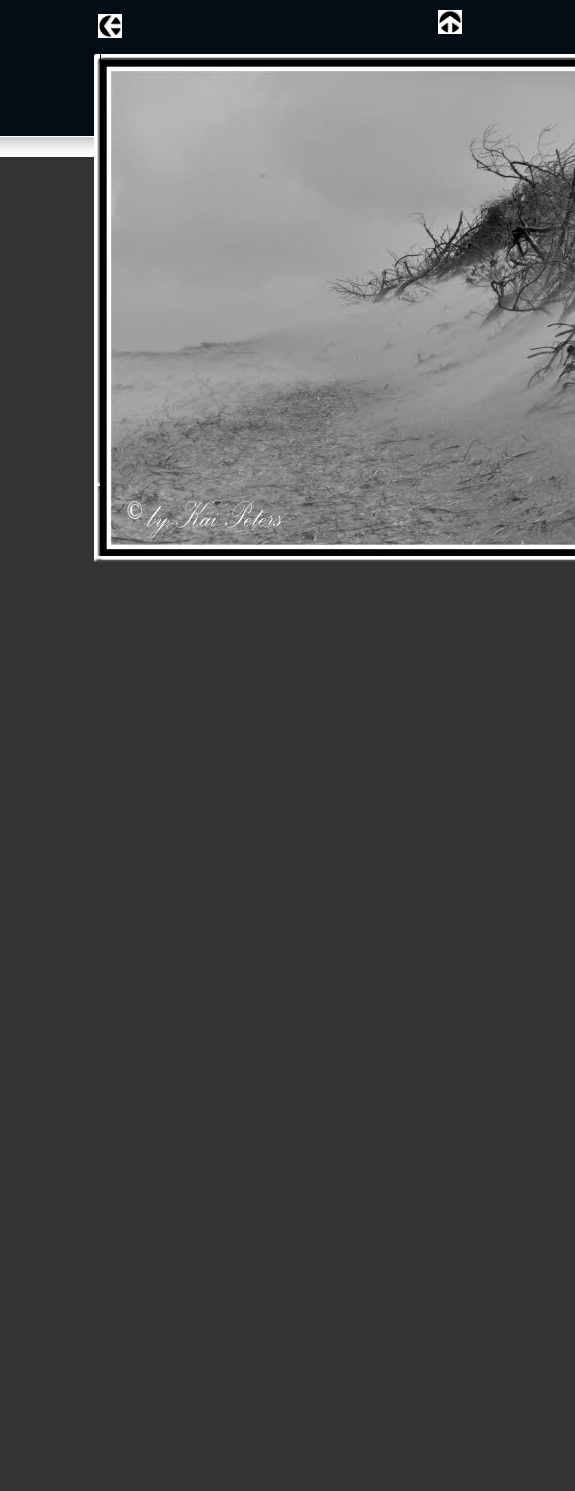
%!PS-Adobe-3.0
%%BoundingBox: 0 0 575 1491
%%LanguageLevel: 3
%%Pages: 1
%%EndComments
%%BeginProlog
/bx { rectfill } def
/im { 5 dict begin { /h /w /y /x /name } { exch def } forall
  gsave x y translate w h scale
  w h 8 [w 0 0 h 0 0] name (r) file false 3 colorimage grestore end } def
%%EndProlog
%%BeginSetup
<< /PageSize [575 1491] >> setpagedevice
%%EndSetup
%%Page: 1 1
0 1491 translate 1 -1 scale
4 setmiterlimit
0.2 setgray
0 0 575 1491 bx
(image0.raw) 0 0 575 157 im
(image1.raw) 98 14 24 24 im
(image2.raw) 438 10 24 24 im
(image3.raw) 94 54 6 6 im
(image4.raw) 101 54 474 6 im
(image5.raw) 94 60 6 496 im
(image6.raw) 100 60 475 496 im
(image7.raw) 94 556 6 6 im
(image8.raw) 100 556 475 6 im
showpage
%%EOF
